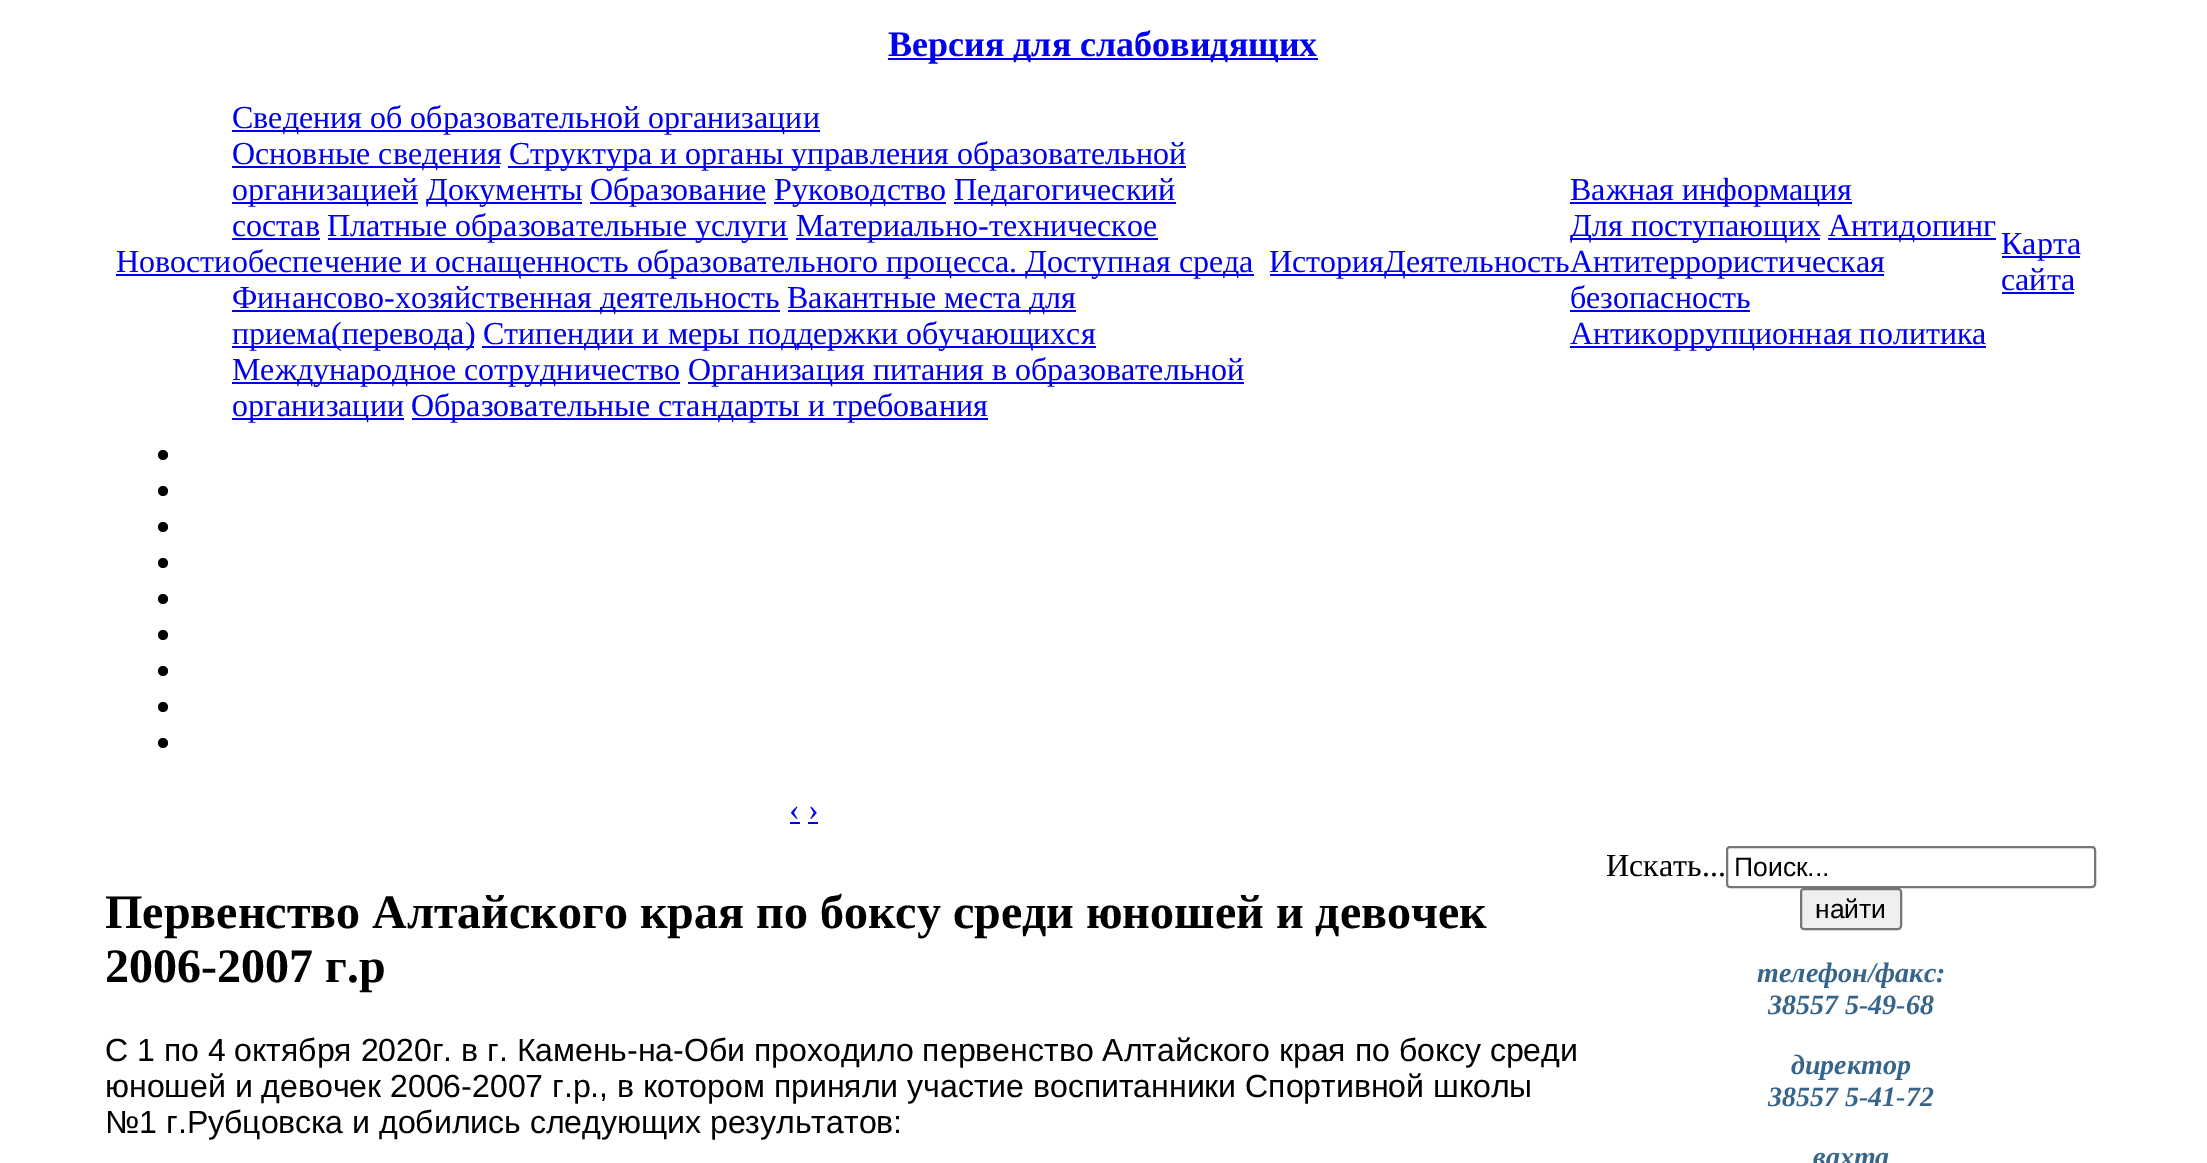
%!PS-Adobe-3.0
%%BoundingBox: 0 0 2207 1163
%%LanguageLevel: 3
%%Pages: 1
%%EndComments
%%BeginProlog
/f { fill } bind def
/S { stroke } bind def
/q { gsave } bind def
/Q { grestore } bind def
/w { setlinewidth } bind def
/fn { [ exch dup neg 0 0 3 -1 roll 0 0 ] selectfont } def
/tx { moveto show } def
/bx { rectfill } def
/ci { newpath 0 360 arc closepath } def
/rr { 5 dict begin { /r /h /w /y /x } { exch def } forall
  x r add y moveto x w add y 2 copy h add r arct x w add y h add x 1 index r arct
  x y h add x y r arct x y 2 copy exch w add exch r arct closepath end } def
%%EndProlog
%%BeginSetup
<< /PageSize [2207 1163] >> setpagedevice
%%EndSetup
%%Page: 1 1
0 1163 translate 1 -1 scale
4 setmiterlimit
1 setgray
0 0 2207 1163 bx
0 0 0.933 setrgbcolor
888 58 430 2 bx
/LiberationSerif-Bold 36 fn
(Версия для слабовидящих) 888 56 tx
232 130 588 2 bx
/LiberationSerif-Regular 32 fn
(Сведения об образовательной организации) 232 128 tx
232 166 268 2 bx
(Основные сведения) 232 164 tx
508 166 678 2 bx
(Структура и органы управления образовательной) 509 164 tx
232 202 186 2 bx
(организацией) 232 200 tx
426 202 156 2 bx
(Документы) 426 200 tx
590 202 176 2 bx
(Образование) 590 200 tx
774 202 172 2 bx
(Руководство) 774 200 tx
954 202 222 2 bx
(Педагогический) 954 200 tx
(состав) 232 236 tx
232 238 88 2 bx
328 238 460 2 bx
(Платные образовательные услуги) 327 236 tx
796 238 362 2 bx
(Материально-техническое) 796 236 tx
232 310 548 2 bx
(Финансово-хозяйственная деятельность) 232 308 tx
788 310 288 2 bx
(Вакантные места для) 787 308 tx
232 346 242 2 bx
(приема\(перевода\)) 232 344 tx
482 346 614 2 bx
(Стипендии и меры поддержки обучающихся) 483 344 tx
232 382 448 2 bx
(Международное сотрудничество) 232 380 tx
688 382 556 2 bx
(Организация питания в образовательной) 688 380 tx
232 418 172 2 bx
(организации) 232 416 tx
412 418 576 2 bx
(Образовательные стандарты и требования) 411 416 tx
1570 202 282 2 bx
(Важная информация) 1570 200 tx
1570 238 250 2 bx
(Для поступающих) 1570 236 tx
1828 238 168 2 bx
(Антидопинг) 1828 236 tx
(безопасность) 1570 308 tx
1570 310 180 2 bx
1570 346 416 2 bx
(Антикоррупционная политика) 1570 344 tx
2002 256 78 2 bx
(Карта) 2001 254 tx
(сайта) 2001 290 tx
2002 292 72 2 bx
116 274 1138 2 bx
(Новостиобеспечение и оснащенность образовательного процесса. Доступная среда) 116 272 tx
1270 274 614 2 bx
(ИсторияДеятельностьАнтитеррористическая) 1269 272 tx
0 setgray
163 455 5 ci f
163 491 5 ci f
163 527 5 ci f
163 563 5 ci f
163 599 5 ci f
163 635 5 ci f
163 671 5 ci f
163 707 5 ci f
163 743 5 ci f
0 0 0.933 setrgbcolor
(‹ ›) 789 820 tx
790 822 10 2 bx
808 822 10 2 bx
/LiberationSerif-Bold 48 fn
0 setgray
(Первенство Алтайского края по боксу среди юношей и девочек) 105 928 tx
(2006-2007 г.р) 105 982 tx
/LiberationSans-Regular 32 fn
(С 1 по 4 октября 2020г. в г. Камень-на-Оби проходило первенство Алтайского края по боксу среди) 105 1061 tx
(юношей и девочек 2006-2007 г.р., в котором приняли участие воспитанники Спортивной школы) 105 1097 tx
(№1 г.Рубцовска и добились следующих результатов:) 105 1133 tx
/LiberationSerif-Regular 32 fn
(Искать...) 1606 876 tx
0.463 setgray
2 w
1727 847 368 40 3 rr S
/LiberationSans-Regular 26.5 fn
0 setgray
(Поиск...) 1734 876 tx
0.937 setgray
1801 889 100 40 3 rr q f Q
0.463 setgray
S
0 setgray
(найти) 1815 918 tx
/LiberationSerif-BoldItalic 28 fn
0.212 0.392 0.545 setrgbcolor
(телефон/факс:) 1757 982 tx
(38557 5-49-68) 1768 1014 tx
(директор) 1791 1074 tx
(38557 5-41-72) 1768 1106 tx
(вахта) 1813 1166 tx
showpage
%%EOF
